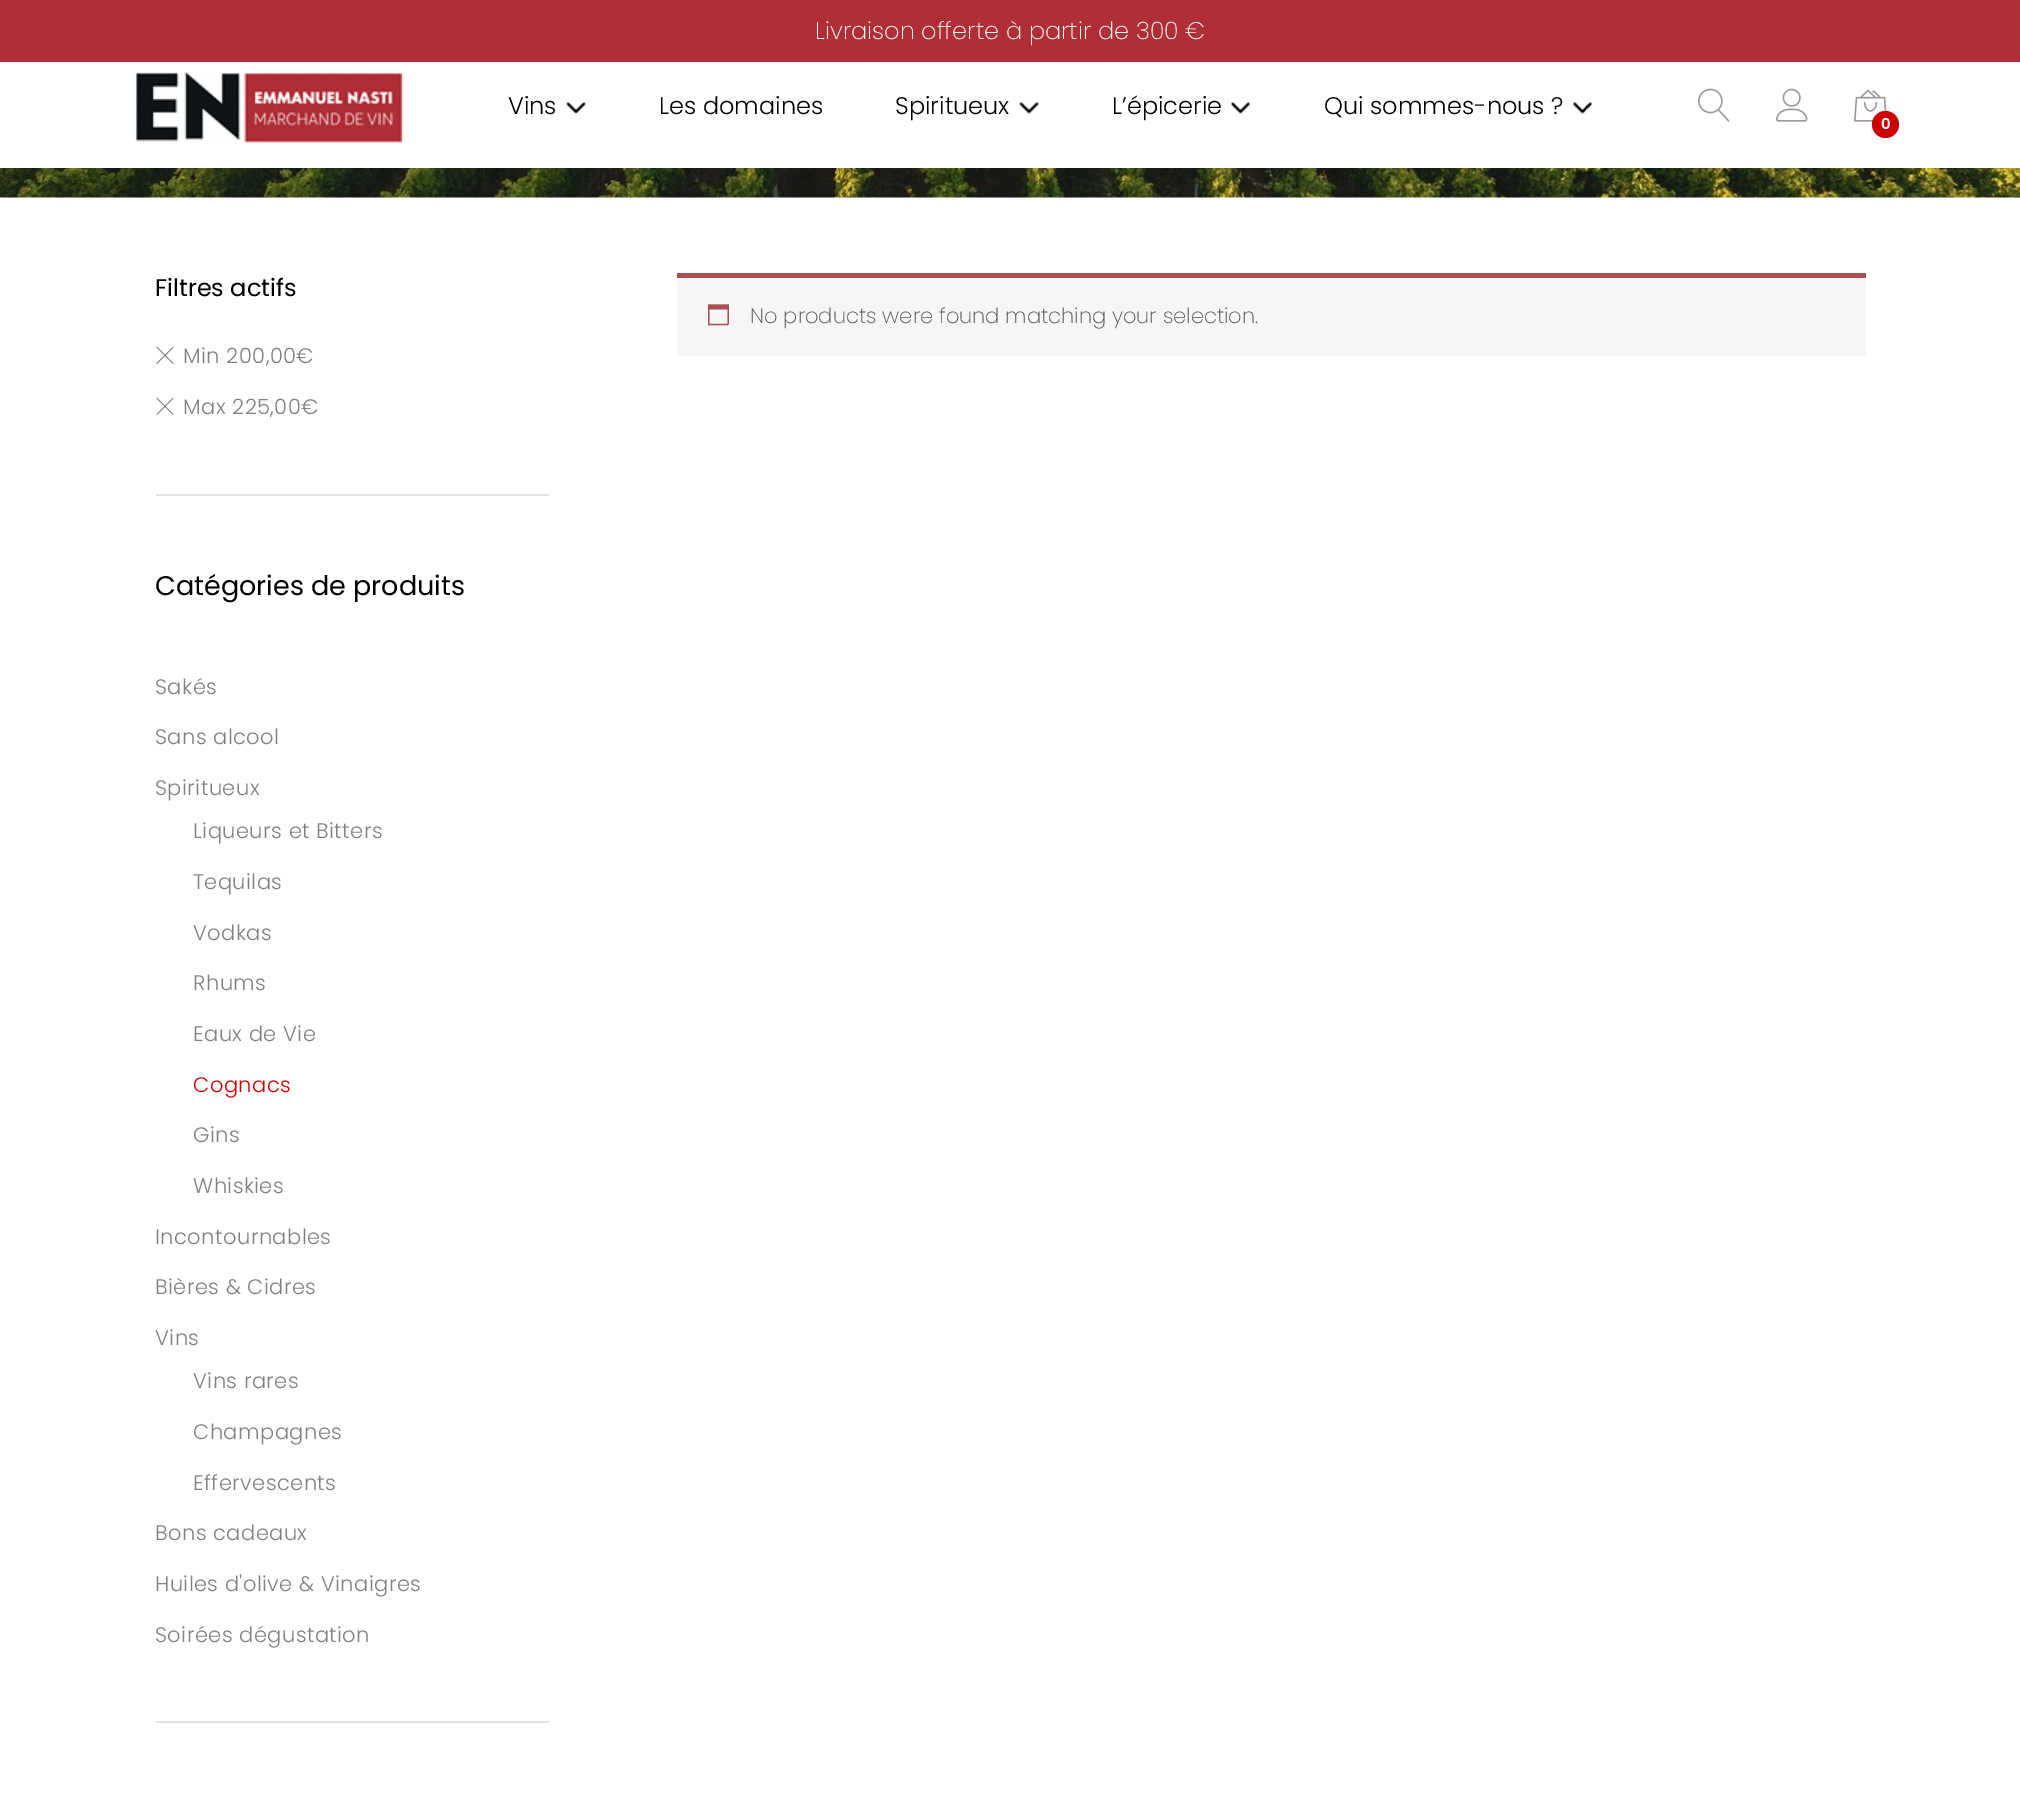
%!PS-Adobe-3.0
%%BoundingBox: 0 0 2020 1807
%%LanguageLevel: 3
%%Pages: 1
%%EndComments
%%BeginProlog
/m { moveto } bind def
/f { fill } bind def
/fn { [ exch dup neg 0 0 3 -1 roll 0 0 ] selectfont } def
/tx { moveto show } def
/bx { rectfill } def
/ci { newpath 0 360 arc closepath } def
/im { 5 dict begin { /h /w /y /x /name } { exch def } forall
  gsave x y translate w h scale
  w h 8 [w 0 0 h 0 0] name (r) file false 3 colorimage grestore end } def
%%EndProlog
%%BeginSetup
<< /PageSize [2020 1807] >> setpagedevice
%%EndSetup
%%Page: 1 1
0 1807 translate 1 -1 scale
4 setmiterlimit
1 setgray
0 0 2020 1807 bx
0.69 0.184 0.216 setrgbcolor
0 0 2020 62 bx
/Poppins-ExtraLight 24 fn
1 setgray
(Livraison offerte à partir de 300 €) 815 39 tx
(image0.raw) 135 72 268 71 im
/Poppins-Light 24 fn
0 setgray
(Vins) 508 114 tx
(image1.raw) 566 102 20 12 im
(Les domaines) 659 114 tx
(Spiritueux) 895 114 tx
(image1.raw) 1019 102 20 12 im
(L’épicerie) 1112 114 tx
(image2.raw) 1231 102 19 12 im
(Qui sommes-nous ?) 1324 114 tx
(image3.raw) 1573 102 19 12 im
(image4.raw) 1698 88 32 34 im
(image5.raw) 1776 88 32 34 im
(image6.raw) 1854 89 33 33 im
0.8 0 0 setrgbcolor
1885.5 124.5 13.5 ci f
/Poppins-SemiBold 15 fn
1 setgray
(0) 1881 129 tx
(image7.raw) 0 168 2020 30 im
0.882 setgray
156 494 393 2 bx
/Poppins-Regular 24 fn
0 setgray
(Filtres actifs) 155 296 tx
(image8.raw) 156 346 18 18 im
/Poppins-Light 21 fn
0.502 setgray
183 363 m 0.45 0 (Min 200,00€) ashow
(image8.raw) 156 397 18 18 im
183 414 m 0.45 0 (Max 225,00€) ashow
0.882 setgray
156 1721 393 2 bx
/Poppins-Regular 27 fn
0 setgray
(Catégories de produits) 155 595 tx
/Poppins-Light 21 fn
0.502 setgray
155 694 m 0.45 0 (Sakés) ashow
155 744 m 0.45 0 (Sans alcool) ashow
155 795 m 0.45 0 (Spiritueux) ashow
193 838 m 0.45 0 (Liqueurs et Bitters) ashow
193 889 m 0.45 0 (Tequilas) ashow
193 940 m 0.45 0 (Vodkas) ashow
193 990 m 0.45 0 (Rhums) ashow
193 1041 m 0.45 0 (Eaux de Vie) ashow
0.8 0 0 setrgbcolor
193 1092 m 0.45 0 (Cognacs) ashow
0.502 setgray
193 1142 m 0.45 0 (Gins) ashow
193 1193 m 0.45 0 (Whiskies) ashow
155 1244 m 0.45 0 (Incontournables) ashow
155 1294 m 0.45 0 (Bières & Cidres) ashow
155 1345 m 0.45 0 (Vins) ashow
193 1388 m 0.45 0 (Vins rares) ashow
193 1439 m 0.45 0 (Champagnes) ashow
193 1490 m 0.45 0 (Effervescents) ashow
155 1540 m 0.45 0 (Bons cadeaux) ashow
155 1591 m 0.45 0 (Huiles d'olive & Vinaigres) ashow
155 1642 m 0.45 0 (Soirées dégustation) ashow
0.965 setgray
677 278 1189 78 bx
0.671 0.314 0.322 setrgbcolor
677 273 1189 5 bx
(image9.raw) 708 304 21 22 im
/Poppins-ExtraLight 21 fn
0.318 setgray
(No products were found matching your selection.) 750 323 tx
showpage
%%EOF
